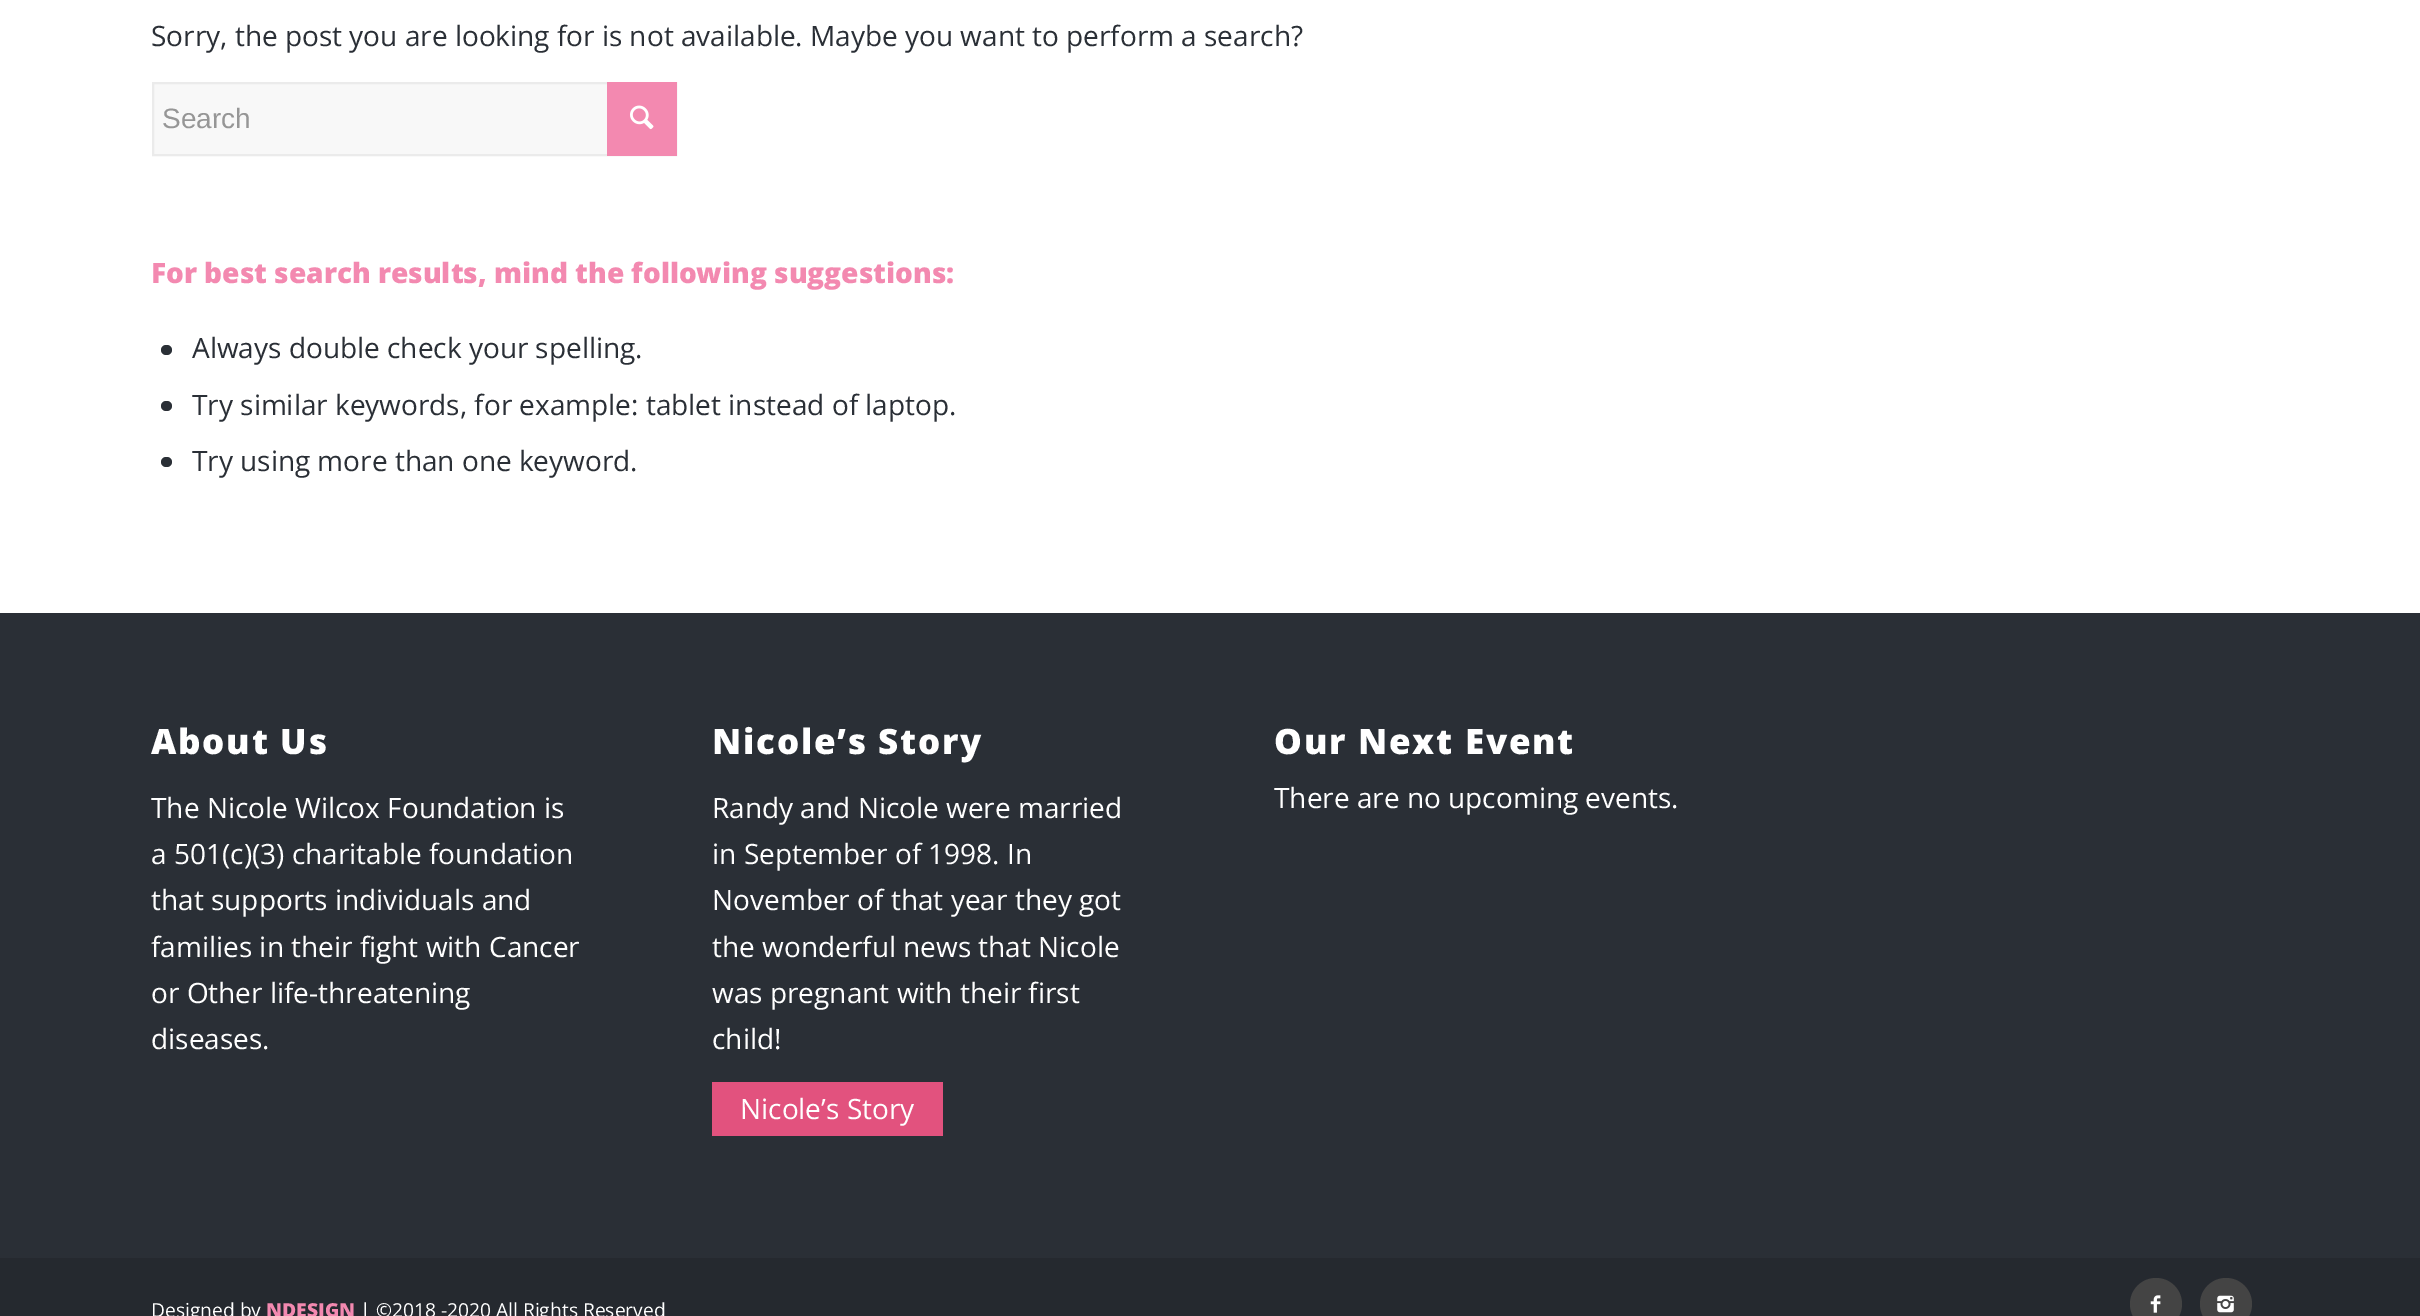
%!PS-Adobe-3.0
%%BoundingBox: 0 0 2420 1316
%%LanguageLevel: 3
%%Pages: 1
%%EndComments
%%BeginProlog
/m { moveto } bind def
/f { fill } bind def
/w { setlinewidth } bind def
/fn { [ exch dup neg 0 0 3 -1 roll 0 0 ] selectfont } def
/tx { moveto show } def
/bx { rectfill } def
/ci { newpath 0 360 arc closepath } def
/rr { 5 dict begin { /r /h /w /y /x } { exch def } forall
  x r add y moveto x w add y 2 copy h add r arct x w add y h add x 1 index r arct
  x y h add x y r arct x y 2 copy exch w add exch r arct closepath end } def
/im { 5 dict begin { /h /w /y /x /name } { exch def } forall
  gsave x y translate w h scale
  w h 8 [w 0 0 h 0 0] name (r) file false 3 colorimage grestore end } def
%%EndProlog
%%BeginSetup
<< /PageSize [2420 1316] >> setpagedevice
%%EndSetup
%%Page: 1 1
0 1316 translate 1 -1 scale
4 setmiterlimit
0.165 0.184 0.212 setrgbcolor
0 0 2420 1316 bx
1 setgray
0 0 2420 613 bx
/OpenSans-Regular 28 fn
0.165 0.184 0.212 setrgbcolor
(Sorry, the post you are looking for is not available. Maybe you want to perform a search?) 151 46 tx
0.973 setgray
154 84 453 70 bx
0.922 setgray
2 w
153 83 523 72 rectstroke
/LiberationSans-Regular 28 fn
0.588 setgray
(Search) 162 128 tx
0.953 0.537 0.69 setrgbcolor
607 82 70 74 bx
(image0.raw) 630 105 24 25 im
/OpenSans-ExtraBold 28 fn
(For best search results, mind the following suggestions:) 151 283 tx
0.165 0.184 0.212 setrgbcolor
161 345 11 10 5 rr f
/OpenSans-Regular 28 fn
(Always double check your spelling.) 192 358 tx
161 401 11 10 5 rr f
(Try similar keywords, for example: tablet instead of laptop.) 192 415 tx
161 457 11 10 5 rr f
(Try using more than one keyword.) 192 471 tx
/OpenSans-ExtraBold 35 fn
1 setgray
151 754 m 1.75 0 (About Us) ashow
/OpenSans-Regular 28 fn
(The Nicole Wilcox Foundation is) 151 818 tx
(a 501\(c\)\(3\) charitable foundation) 151 864 tx
(that supports individuals and) 151 910 tx
(families in their fight with Cancer) 151 957 tx
(or Other life-threatening) 151 1003 tx
(diseases.) 151 1049 tx
/OpenSans-ExtraBold 35 fn
712 754 m 1.75 0 (Nicole’s Story) ashow
/OpenSans-Regular 28 fn
(Randy and Nicole were married) 712 818 tx
(in September of 1998. In) 712 864 tx
(November of that year they got) 712 910 tx
(the wonderful news that Nicole) 712 957 tx
(was pregnant with their first) 712 1003 tx
(child!) 712 1049 tx
0.886 0.322 0.494 setrgbcolor
712 1082 231 54 bx
1 setgray
(Nicole’s Story) 740 1119 tx
/OpenSans-ExtraBold 35 fn
1274 754 m 1.75 0 (Our Next Event) ashow
/OpenSans-Regular 28 fn
(There are no upcoming events.) 1274 808 tx
0.145 0.161 0.184 setrgbcolor
0 1258 2420 58 bx
/OpenSans-Regular 19.25 fn
1 setgray
(Designed by) 151 1317 tx
/OpenSans-ExtraBold 19.25 fn
0.953 0.537 0.69 setrgbcolor
(NDESIGN) 266 1317 tx
/OpenSans-Regular 19.25 fn
1 setgray
(| ©2018 -2020 All Rights Reserved) 360 1317 tx
0.267 setgray
2156 1304 26 ci f
(image1.raw) 2150 1295 11 18 im
2226 1304 26 ci f
(image2.raw) 2217 1295 17 18 im
showpage
%%EOF
